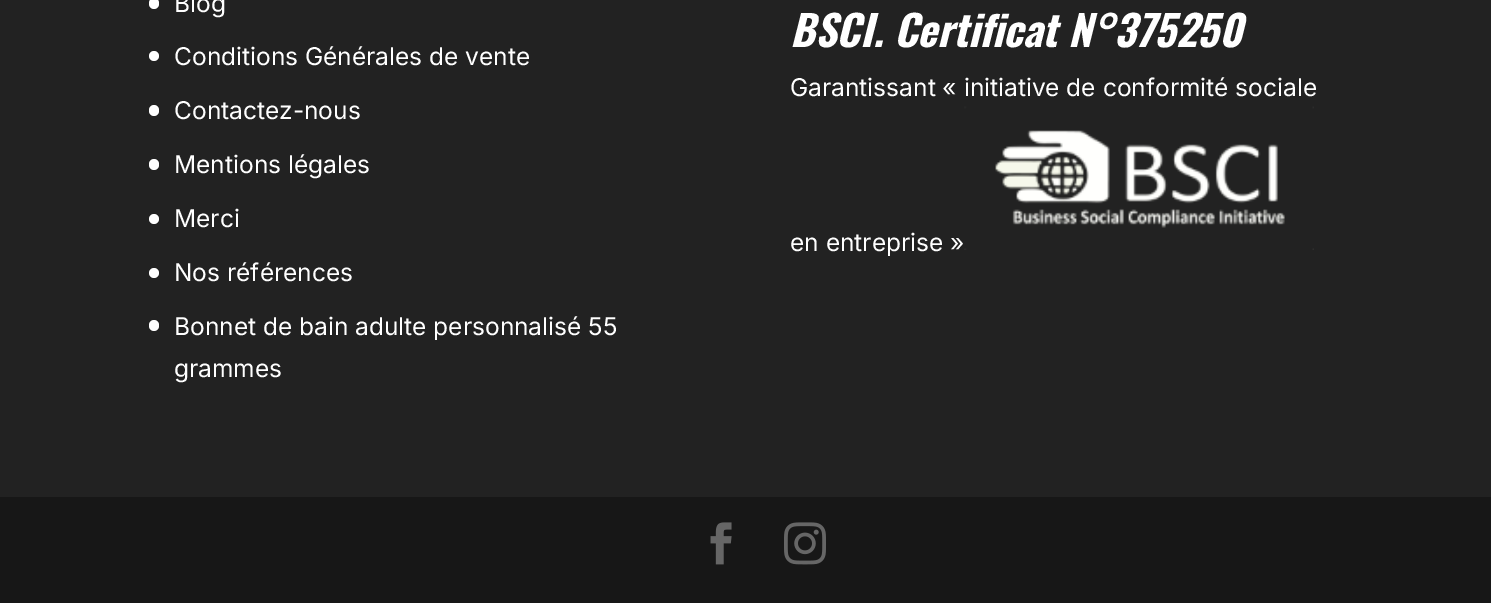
%!PS-Adobe-3.0
%%BoundingBox: 0 0 1491 603
%%LanguageLevel: 3
%%Pages: 1
%%EndComments
%%BeginProlog
/f { fill } bind def
/fn { [ exch dup neg 0 0 3 -1 roll 0 0 ] selectfont } def
/tx { moveto show } def
/bx { rectfill } def
/ci { newpath 0 360 arc closepath } def
/rr { 5 dict begin { /r /h /w /y /x } { exch def } forall
  x r add y moveto x w add y 2 copy h add r arct x w add y h add x 1 index r arct
  x y h add x y r arct x y 2 copy exch w add exch r arct closepath end } def
/im { 5 dict begin { /h /w /y /x /name } { exch def } forall
  gsave x y translate w h scale
  w h 8 [w 0 0 h 0 0] name (r) file false 3 colorimage grestore end } def
%%EndProlog
%%BeginSetup
<< /PageSize [1491 603] >> setpagedevice
%%EndSetup
%%Page: 1 1
0 603 translate 1 -1 scale
4 setmiterlimit
0.133 setgray
0 0 1491 603 bx
1 setgray
149 -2 10 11 5 rr f
/Inter-Regular 24.5 fn
(Blog) 174 12 tx
154 56 5 ci f
(Conditions Générales de vente) 174 65 tx
149 105 10 11 5 rr f
(Contactez-nous) 174 119 tx
149 159 10 11 5 rr f
(Mentions légales) 174 173 tx
154 219 5 ci f
(Merci) 174 227 tx
154 273 5 ci f
(Nos références) 174 281 tx
149 320 10 11 5 rr f
(Bonnet de bain adulte personnalisé 55) 174 335 tx
(grammes) 174 377 tx
/Oswald-BoldItalic 42 fn
(BSCI. Certificat N°375250) 790 47 tx
/Inter-Regular 24.5 fn
(Garantissant « initiative de conformité sociale) 790 96 tx
(en entreprise ») 790 251 tx
(image0.raw) 964 106 350 144 im
0.09 setgray
0 497 1491 106 bx
(image1.raw) 710 522 22 43 im
(image2.raw) 784 522 42 43 im
showpage
%%EOF
